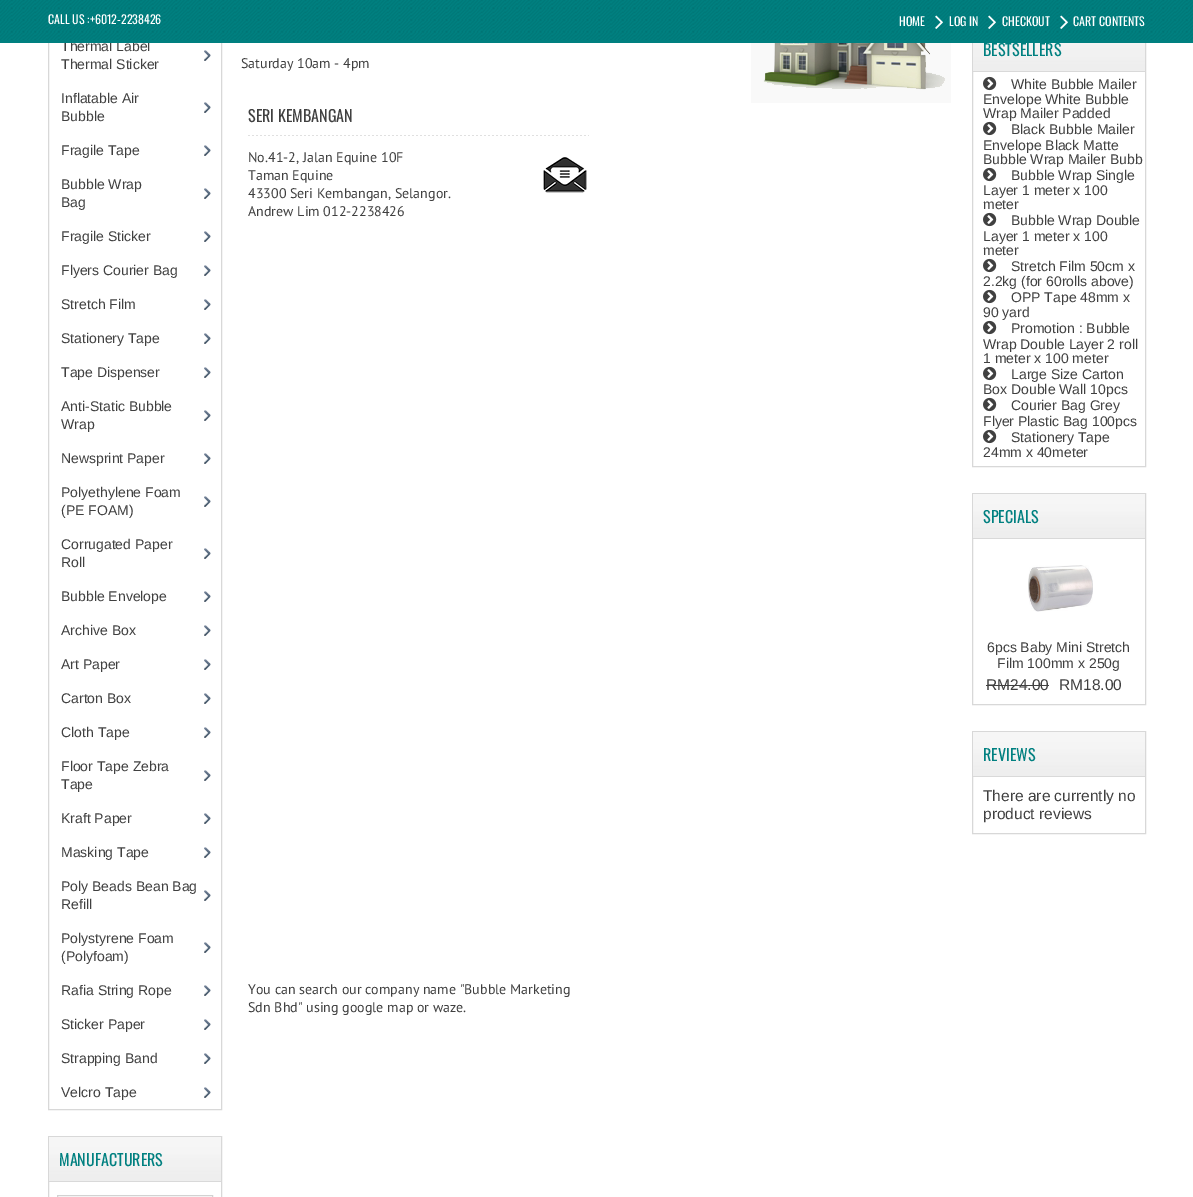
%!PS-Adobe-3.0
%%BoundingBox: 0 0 1193 1197
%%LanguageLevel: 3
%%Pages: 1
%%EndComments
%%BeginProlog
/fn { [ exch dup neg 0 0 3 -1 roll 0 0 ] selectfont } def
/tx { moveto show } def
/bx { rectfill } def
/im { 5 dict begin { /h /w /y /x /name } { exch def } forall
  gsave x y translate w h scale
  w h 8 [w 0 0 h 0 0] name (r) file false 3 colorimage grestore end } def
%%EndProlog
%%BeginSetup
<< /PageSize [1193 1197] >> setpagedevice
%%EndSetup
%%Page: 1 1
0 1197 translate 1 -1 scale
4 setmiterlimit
1 setgray
0 0 1193 1197 bx
0.847 setgray
48.5 -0.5 173 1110 rectstroke
/LiberationSans-Regular 14 fn
0.251 setgray
(Thermal Label) 61 51 tx
0.847 setgray
972.5 26.5 173 440 rectstroke
0 0.502 0.502 setrgbcolor
0 0 1193 43 bx
(image0.raw) 0 0 1193 40 im
/Oswald-Regular 12 fn
1 setgray
(CALL US :+6012-2238426) 48 24 tx
(HOME) 899 26 tx
(image1.raw) 935 15 8 14 im
(LOG IN) 949 26 tx
(image2.raw) 988 15 8 14 im
(CHECKOUT) 1002 26 tx
(image3.raw) 1060 15 8 14 im
(CART CONTENTS) 1073 26 tx
(image4.raw) 204 50 7 11 im
/LiberationSans-Regular 14 fn
0.251 setgray
(Thermal Sticker) 61 69 tx
(image4.raw) 204 102 7 11 im
(Inflatable Air) 61 103 tx
(Bubble) 61 121 tx
(image4.raw) 204 145 7 11 im
(Fragile Tape) 61 155 tx
(image4.raw) 204 188 7 11 im
(Bubble Wrap) 61 189 tx
(Bag) 61 207 tx
(image4.raw) 204 231 7 11 im
(Fragile Sticker) 61 241 tx
(image4.raw) 204 265 7 11 im
(Flyers Courier Bag) 61 275 tx
(image4.raw) 204 299 7 11 im
(Stretch Film) 61 309 tx
(image4.raw) 204 333 7 11 im
(Stationery Tape) 61 343 tx
(image4.raw) 204 367 7 11 im
(Tape Dispenser) 61 377 tx
(image4.raw) 204 410 7 11 im
(Anti-Static Bubble) 61 411 tx
(Wrap) 61 429 tx
(image4.raw) 204 453 7 11 im
(Newsprint Paper) 61 463 tx
(image4.raw) 204 496 7 11 im
(Polyethylene Foam) 61 497 tx
(\(PE FOAM\)) 61 515 tx
(image4.raw) 204 548 7 11 im
(Corrugated Paper) 61 549 tx
(Roll) 61 567 tx
(image4.raw) 204 591 7 11 im
(Bubble Envelope) 61 601 tx
(image4.raw) 204 625 7 11 im
(Archive Box) 61 635 tx
(image4.raw) 204 659 7 11 im
(Art Paper) 61 669 tx
(image4.raw) 204 693 7 11 im
(Carton Box) 61 703 tx
(image4.raw) 204 727 7 11 im
(Cloth Tape) 61 737 tx
(image4.raw) 204 770 7 11 im
(Floor Tape Zebra) 61 771 tx
(Tape) 61 789 tx
(image4.raw) 204 813 7 11 im
(Kraft Paper) 61 823 tx
(image4.raw) 204 847 7 11 im
(Masking Tape) 61 857 tx
(image4.raw) 204 890 7 11 im
(Poly Beads Bean Bag) 61 891 tx
(Refill) 61 909 tx
(image4.raw) 204 942 7 11 im
(Polystyrene Foam) 61 943 tx
(\(Polyfoam\)) 61 961 tx
(image4.raw) 204 985 7 11 im
(Rafia String Rope) 61 995 tx
(image4.raw) 204 1019 7 11 im
(Sticker Paper) 61 1029 tx
(image4.raw) 204 1053 7 11 im
(Strapping Band) 61 1063 tx
(image4.raw) 204 1087 7 11 im
(Velcro Tape) 61 1097 tx
0.847 setgray
48.5 1136.5 173 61 rectstroke
(image5.raw) 49 1137 172 44 im
0.851 setgray
49 1181 172 1 bx
/Oswald-Regular 16 fn
0 0.502 0.502 setrgbcolor
(MANUFACTURERS) 59 1166 tx
0.824 setgray
57.5 1195.5 155 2 rectstroke
/PTSans-Regular 14 fn
0.251 setgray
(Saturday 10am - 4pm) 241 68 tx
(image6.raw) 751 43 200 60 im
(image7.raw) 248 135 341 1 im
/Oswald-Regular 16 fn
(SERI KEMBANGAN) 248 122 tx
/PTSans-Regular 14 fn
(No.41-2, Jalan Equine 10F) 248 162 tx
(image8.raw) 543 157 44 36 im
(Taman Equine) 248 180 tx
(43300 Seri Kembangan, Selangor.) 248 198 tx
(Andrew Lim 012-2238426) 248 216 tx
(You can search our company name "Bubble Marketing) 248 994 tx
(Sdn Bhd" using google map or waze.) 248 1012 tx
(image9.raw) 973 43 172 28 im
0.851 setgray
973 71 172 1 bx
/Oswald-Regular 16 fn
0 0.502 0.502 setrgbcolor
(BESTSELLERS) 983 56 tx
(image10.raw) 983 76 14 15 im
/LiberationSans-Regular 14 fn
0.251 setgray
(White Bubble Mailer) 1011 89 tx
(Envelope White Bubble) 983 104 tx
(Wrap Mailer Padded) 983 118 tx
(image10.raw) 983 121 14 15 im
(Black Bubble Mailer) 1011 134 tx
(Envelope Black Matte) 983 150 tx
(Bubble Wrap Mailer Bubb) 983 164 tx
(image10.raw) 983 167 14 15 im
(Bubble Wrap Single) 1011 180 tx
(Layer 1 meter x 100) 983 195 tx
(meter) 983 209 tx
(image10.raw) 983 212 14 15 im
(Bubble Wrap Double) 1011 225 tx
(Layer 1 meter x 100) 983 241 tx
(meter) 983 255 tx
(image10.raw) 983 258 14 15 im
(Stretch Film 50cm x) 1011 271 tx
(2.2kg \(for 60rolls above\)) 983 286 tx
(image10.raw) 983 289 14 15 im
(OPP Tape 48mm x) 1011 302 tx
(90 yard) 983 317 tx
(image10.raw) 983 320 14 15 im
(Promotion : Bubble) 1011 333 tx
(Wrap Double Layer 2 roll) 983 349 tx
(1 meter x 100 meter) 983 363 tx
(image10.raw) 983 366 14 15 im
(Large Size Carton) 1011 379 tx
(Box Double Wall 10pcs) 983 394 tx
(image10.raw) 983 397 14 15 im
(Courier Bag Grey) 1011 410 tx
(Flyer Plastic Bag 100pcs) 983 426 tx
(image10.raw) 983 429 14 15 im
(Stationery Tape) 1011 442 tx
(24mm x 40meter) 983 457 tx
0.847 setgray
972.5 493.5 173 211 rectstroke
(image5.raw) 973 494 172 44 im
0.851 setgray
973 538 172 1 bx
/Oswald-Regular 16 fn
0 0.502 0.502 setrgbcolor
(SPECIALS) 983 523 tx
(image11.raw) 1028 565 65 47 im
/LiberationSans-Regular 14 fn
0.251 setgray
(6pcs Baby Mini Stretch) 987 652 tx
(Film 100mm x 250g) 997 668 tx
/LiberationSans-Regular 15.5 fn
(RM24.00) 986 690 tx
986 685 63 1 bx
(RM18.00) 1059 690 tx
0.847 setgray
972.5 731.5 173 102 rectstroke
(image5.raw) 973 732 172 44 im
0.851 setgray
973 776 172 1 bx
/Oswald-Regular 16 fn
0 0.502 0.502 setrgbcolor
(REVIEWS) 983 761 tx
/LiberationSans-Regular 15.5 fn
0.251 setgray
(There are currently no) 983 801 tx
(product reviews) 983 819 tx
showpage
%%EOF
